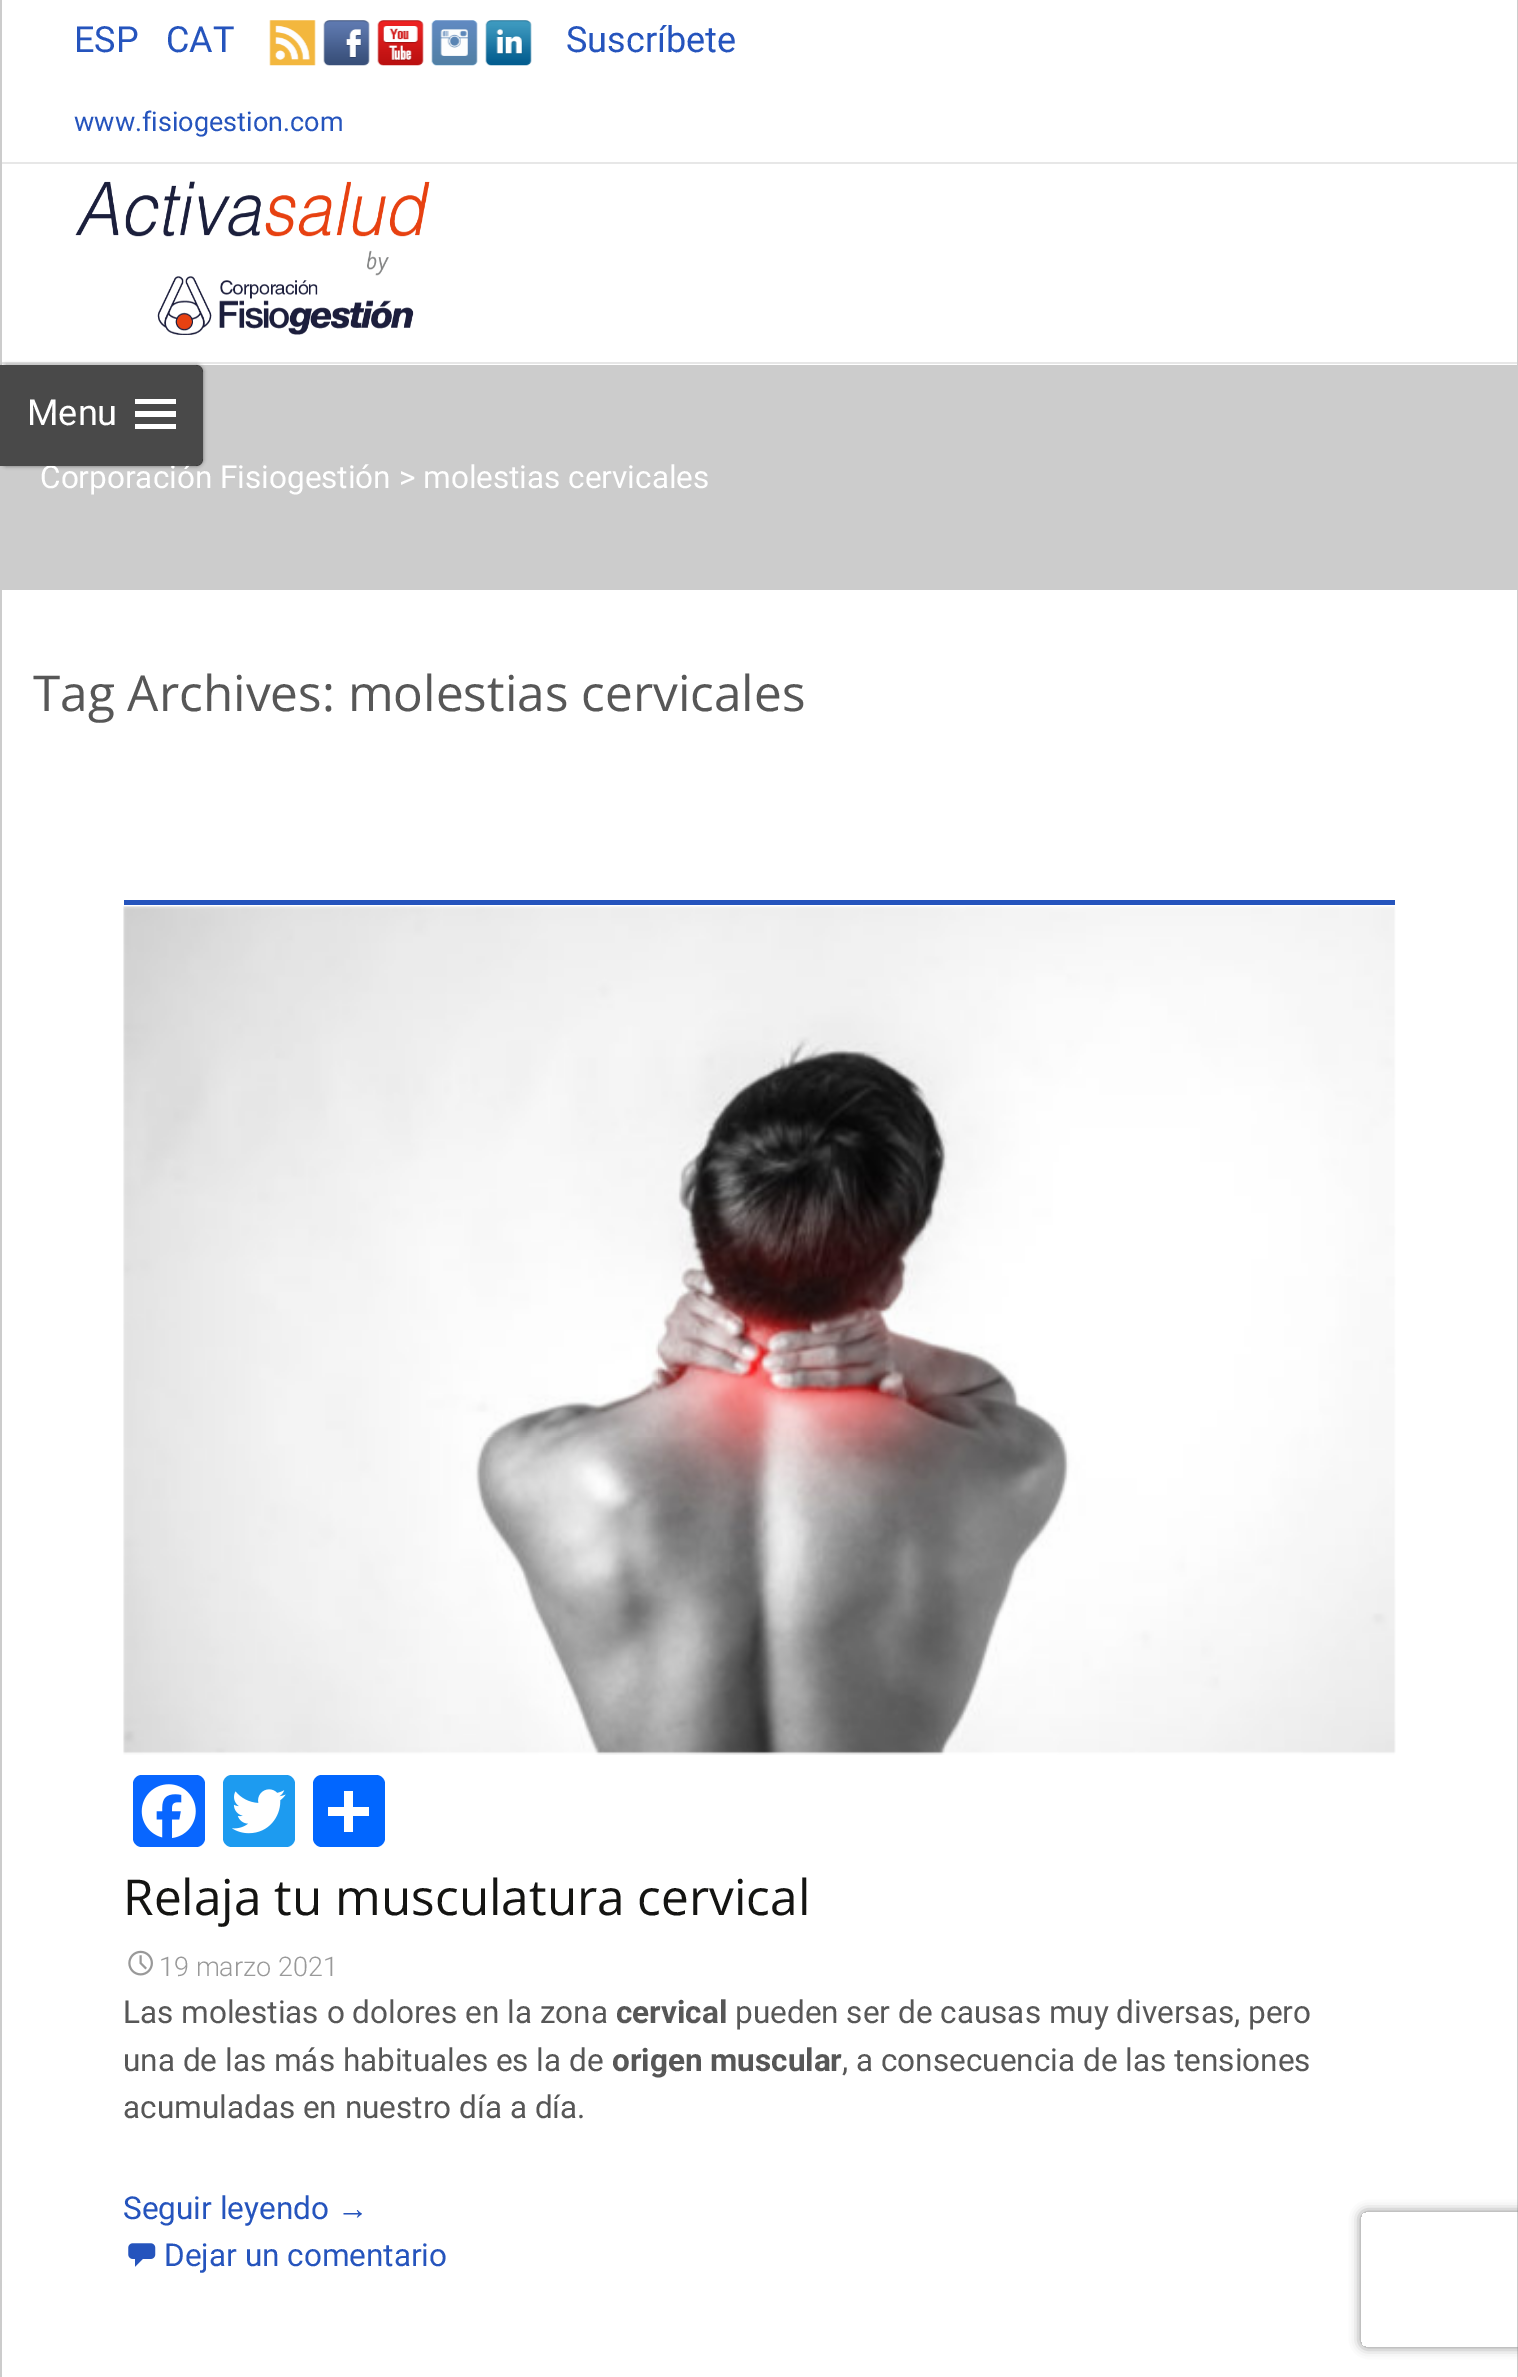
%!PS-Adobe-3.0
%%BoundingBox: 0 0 1518 2377
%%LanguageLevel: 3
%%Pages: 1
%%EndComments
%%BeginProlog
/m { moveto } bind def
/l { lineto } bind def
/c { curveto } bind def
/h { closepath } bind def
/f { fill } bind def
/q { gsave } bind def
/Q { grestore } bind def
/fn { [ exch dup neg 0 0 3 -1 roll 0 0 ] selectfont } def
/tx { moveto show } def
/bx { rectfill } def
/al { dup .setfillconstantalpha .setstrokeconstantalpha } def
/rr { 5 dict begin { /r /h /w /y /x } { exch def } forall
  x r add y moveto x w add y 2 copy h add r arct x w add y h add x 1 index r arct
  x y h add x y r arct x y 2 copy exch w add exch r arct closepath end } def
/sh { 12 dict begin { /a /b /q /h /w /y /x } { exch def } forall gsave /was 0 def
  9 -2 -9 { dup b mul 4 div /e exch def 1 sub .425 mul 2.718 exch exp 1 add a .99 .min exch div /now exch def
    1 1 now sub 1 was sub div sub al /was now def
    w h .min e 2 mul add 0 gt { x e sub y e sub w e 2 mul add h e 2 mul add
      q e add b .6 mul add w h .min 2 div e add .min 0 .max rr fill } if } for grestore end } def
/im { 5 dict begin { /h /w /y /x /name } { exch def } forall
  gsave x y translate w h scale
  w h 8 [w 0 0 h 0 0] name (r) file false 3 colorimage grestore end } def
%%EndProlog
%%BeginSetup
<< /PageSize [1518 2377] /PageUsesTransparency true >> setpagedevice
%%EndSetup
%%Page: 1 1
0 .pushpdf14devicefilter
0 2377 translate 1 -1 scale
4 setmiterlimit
1 setgray
0 0 1518 2377 bx
0.8 setgray
1517 0 1 2377 bx
0 0 2 2377 bx
0.906 setgray
2 162 1515 2 bx
/Roboto-Regular 36 fn
0.145 0.329 0.741 setrgbcolor
(ESP) 74 52 tx
(CAT) 166 52 tx
(image0.raw) 269 20 47 46 im
(image1.raw) 323 20 47 46 im
(image2.raw) 377 20 47 46 im
(image3.raw) 431 20 47 46 im
(image4.raw) 485 20 47 46 im
(Suscríbete) 566 52 tx
/Roboto-Regular 27 fn
(www.fisiogestion.com) 74 131 tx
0.906 setgray
2 362 1515 2 bx
(image5.raw) 75 181 355 154 im
0.8 setgray
2 365 1515 225 bx
q
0 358 m 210 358 l 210 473 l 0 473 l h 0 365 m 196 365 l 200 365 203 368 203 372 c 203 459 l 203 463 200 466 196 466 c 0 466 l h eoclip newpath
0.196 setgray
0 365 203 101 7 2 0.64 sh
Q
/Roboto-Regular 31.5 fn
1 setgray
(Corporación Fisiogestión > molestias cervicales) 40 488 tx
0.8 al
0.157 setgray
0 365 m 196 365 l 200 365 203 368 203 372 c 203 459 l 203 463 200 466 196 466 c 0 466 l h f
/Roboto-Regular 36 fn
1 al
1 setgray
(Menu) 27 425 tx
135 429 m 135 424 l 176 424 l 176 429 l h 135 417 m 135 411 l 176 411 l 176 417 l h 135 404 m 135 399 l 176 399 l 176 404 l h f
/OpenSans-Regular 49.5 fn
0.341 setgray
(Tag Archives: molestias cervicales) 33 711 tx
0.145 0.329 0.741 setrgbcolor
124 900 1271 5 bx
(image6.raw) 123 906 1273 849 im
0.031 0.4 1 setrgbcolor
133 1775 72 72 9 rr f
(image7.raw) 141 1784 55 54 im
0.114 0.608 0.941 setrgbcolor
223 1775 72 72 9 rr f
(image8.raw) 232 1789 54 45 im
0.004 0.4 1 setrgbcolor
313 1775 72 72 9 rr f
1 setgray
344 1791 9 41 bx
328 1807 41 9 bx
0.078 0.078 0.071 setrgbcolor
(Relaja tu musculatura cervical) 123 1915 tx
(image9.raw) 128 1950 25 26 im
/Roboto-Light 27 fn
0.6 setgray
(19 marzo 2021) 159 1976 tx
/Roboto-Regular 31.5 fn
0.341 setgray
(Las molestias o dolores en la zona) 123 2023 tx
/Roboto-Bold 31.5 fn
(cervical) 616 2023 tx
/Roboto-Regular 31.5 fn
(pueden ser de causas muy diversas, pero) 735 2023 tx
(una de las más habituales es la de) 123 2071 tx
/Roboto-Bold 31.5 fn
(origen muscular) 612 2071 tx
/Roboto-Regular 31.5 fn
(, a consecuencia de las tensiones) 842 2071 tx
(acumuladas en nuestro día a día.) 123 2118 tx
0.145 0.329 0.741 setrgbcolor
(Seguir leyendo) 123 2219 tx
/LiberationSans-Regular 31.5 fn
(→) 337 2219 tx
(image10.raw) 128 2243 28 24 im
/Roboto-Regular 31.5 fn
(Dejar un comentario) 164 2266 tx
q
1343 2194 m 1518 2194 l 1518 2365 l 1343 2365 l h 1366 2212 m 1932 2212 l 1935 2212 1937 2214 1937 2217 c 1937 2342 l 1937 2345 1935 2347 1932 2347 c 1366 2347 l 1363 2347 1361 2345 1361 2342 c 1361 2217 l 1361 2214 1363 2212 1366 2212 c h eoclip newpath
0.502 setgray
1361 2212 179 135 5 5.5 1 sh
Q
.poppdf14devicefilter showpage
%%EOF
